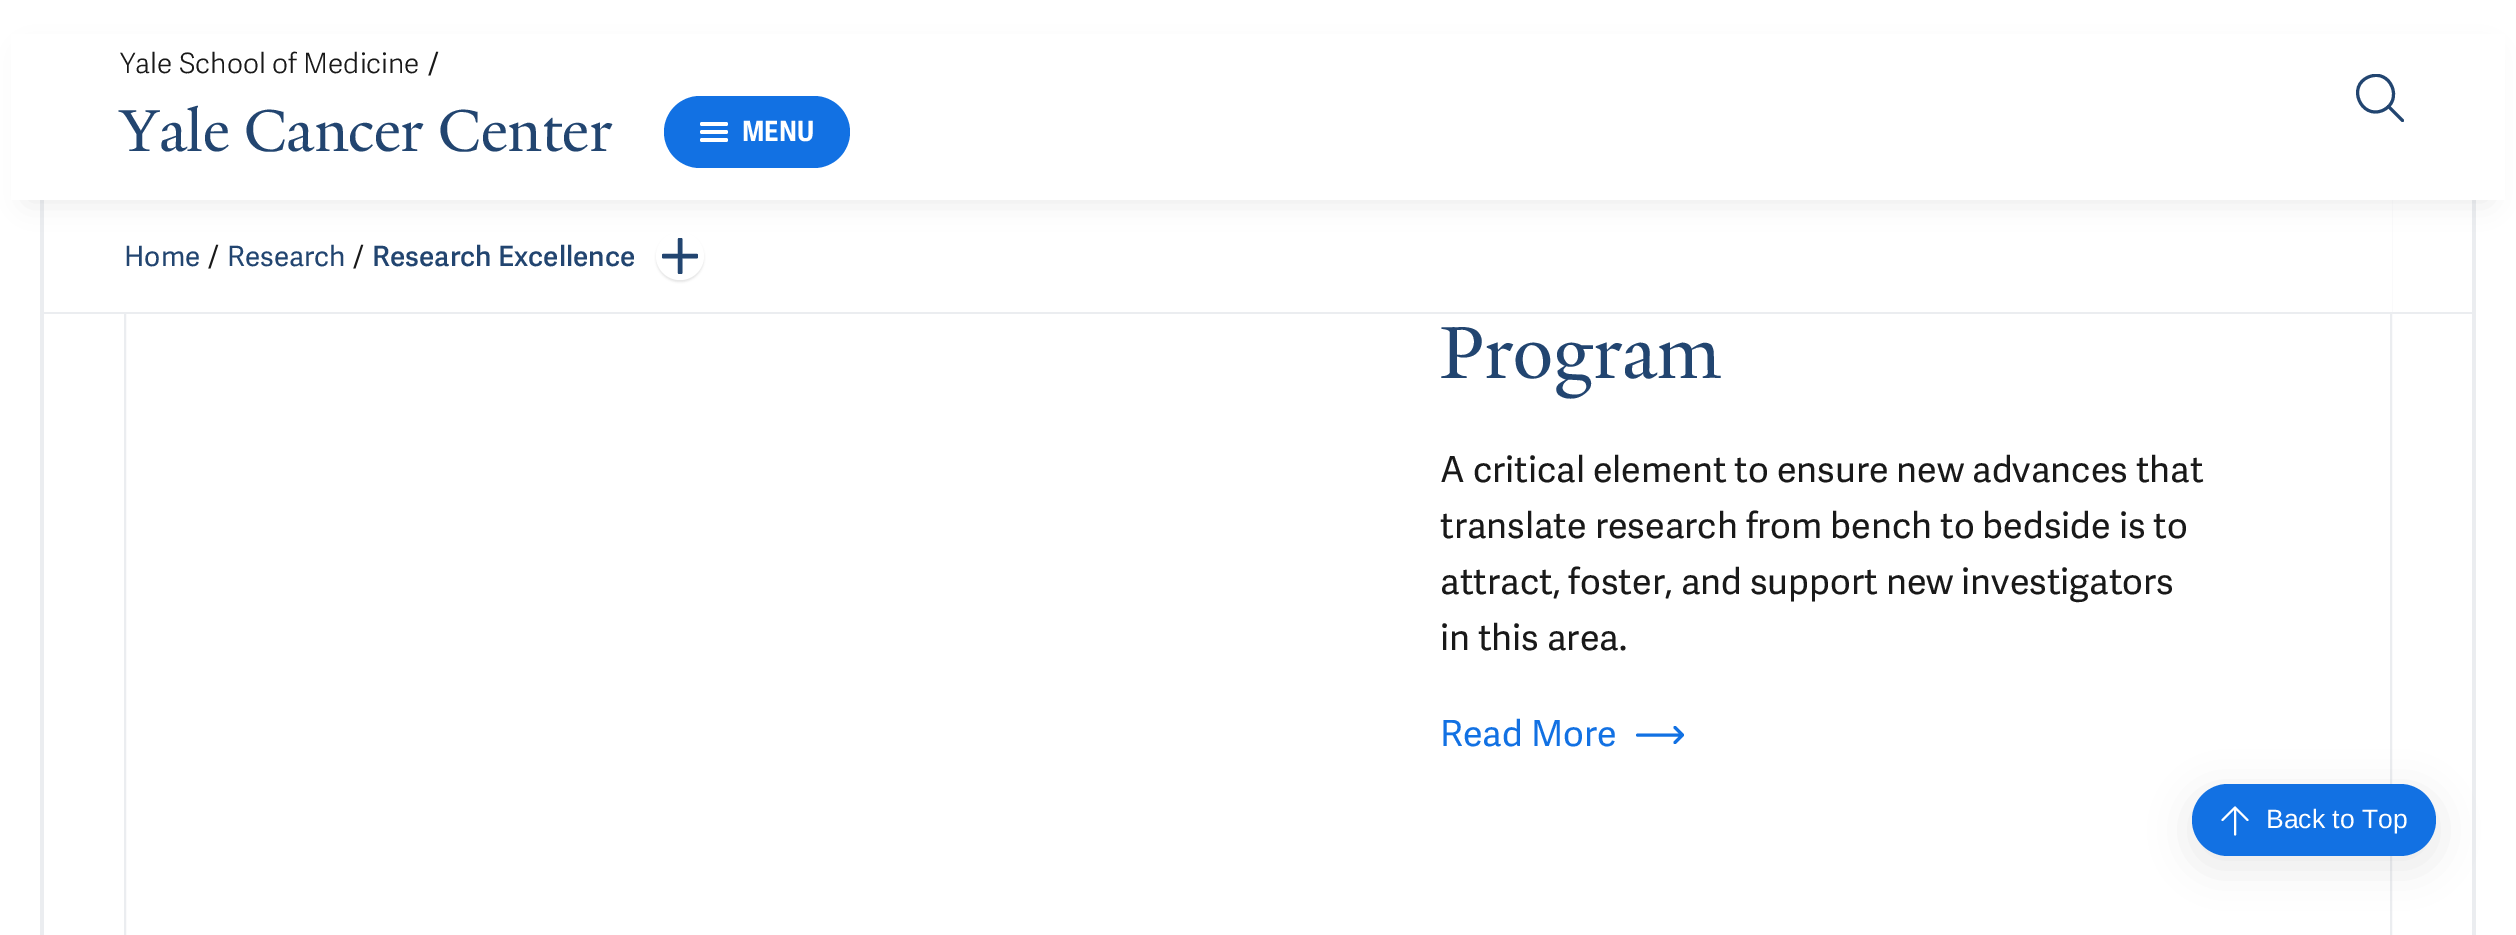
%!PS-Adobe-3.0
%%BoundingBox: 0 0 2516 935
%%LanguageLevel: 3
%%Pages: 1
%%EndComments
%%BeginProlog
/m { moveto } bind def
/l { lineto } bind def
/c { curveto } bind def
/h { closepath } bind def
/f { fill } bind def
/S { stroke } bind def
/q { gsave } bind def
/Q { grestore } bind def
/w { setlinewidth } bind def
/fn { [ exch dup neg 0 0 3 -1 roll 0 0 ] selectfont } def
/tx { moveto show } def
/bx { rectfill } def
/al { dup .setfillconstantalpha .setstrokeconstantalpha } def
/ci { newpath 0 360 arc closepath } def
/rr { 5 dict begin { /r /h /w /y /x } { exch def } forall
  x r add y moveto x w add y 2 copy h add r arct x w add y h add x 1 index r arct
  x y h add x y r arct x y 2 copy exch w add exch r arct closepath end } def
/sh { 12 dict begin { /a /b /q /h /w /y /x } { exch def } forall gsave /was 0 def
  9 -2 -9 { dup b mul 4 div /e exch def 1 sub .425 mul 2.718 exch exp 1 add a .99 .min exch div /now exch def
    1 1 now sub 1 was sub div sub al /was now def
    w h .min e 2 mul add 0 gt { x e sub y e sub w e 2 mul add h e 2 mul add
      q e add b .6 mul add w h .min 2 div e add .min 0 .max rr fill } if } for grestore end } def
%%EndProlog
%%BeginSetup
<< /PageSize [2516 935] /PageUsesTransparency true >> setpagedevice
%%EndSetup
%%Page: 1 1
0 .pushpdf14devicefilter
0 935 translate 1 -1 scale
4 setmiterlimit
1 setgray
0 0 2516 935 bx
0.922 0.929 0.941 setrgbcolor
2 w
125 35 2266 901 rectstroke
1 setgray
124 200 2268 114 bx
0 setgray
656 234 48 48 24 1 0.1 sh
1 setgray
680 256 24 ci f
q
662 238 36 36 rectclip
0.133 0.271 0.439 setrgbcolor
4.5 w
1 setlinecap
1 setlinejoin
680 239.5 m 680 272.5 l 696.5 256 m 663.5 256 l S
Q
0.922 0.929 0.941 setrgbcolor
2472 200 4 735 bx
40 200 4 735 bx
0.098 setgray
28 56 2460 144 0 14 0.1 sh
1 setgray
11 34 2494 166 bx
/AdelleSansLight-Light 28 fn
0.098 setgray
(Yale School of Medicine) 120 73 tx
/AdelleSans-Regular 28 fn
(/) 428 73 tx
/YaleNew-Regular 64 fn
0.133 0.271 0.439 setrgbcolor
(Yale Cancer Center) 120 151 tx
0.071 0.443 0.89 setrgbcolor
664 96 186 72 36 rr f
1 setgray
700 122 28 4 2 rr f
700 130 28 4 2 rr f
700 138 28 4 2 rr f
/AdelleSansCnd-Bold 28 fn
(MENU) 742 141 tx
q
2356 74 48 48 rectclip
0.133 0.271 0.439 setrgbcolor
3 w
1 setlinecap
1 setlinejoin
2368.5 77 m 2390.5 67.5 2404.5 101 2382.5 110.5 c 2361 119.5 2346.5 86 2368.5 77 c h S
Q
0.133 0.271 0.439 setrgbcolor
3 w
1 setlinecap
1 setlinejoin
2388.5 106.5 m 2402.5 120.5 l S
0.922 0.929 0.941 setrgbcolor
44 312 2428 2 bx
/AdelleSans-Regular 28 fn
0.133 0.271 0.439 setrgbcolor
(Home) 124 266 tx
0.098 setgray
(/) 208 266 tx
0.133 0.271 0.439 setrgbcolor
(Research) 227 266 tx
0.098 setgray
(/) 353 266 tx
/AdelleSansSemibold-SemiBold 28 fn
0.133 0.271 0.439 setrgbcolor
(Research Excellence) 372 266 tx
/YaleNew-Regular 80 fn
(Program) 1440 378 tx
/AdelleSans-Regular 36 fn
0.098 setgray
(A critical element to ensure new advances that) 1440 482 tx
(translate research from bench to bedside is to) 1440 538 tx
(attract, foster, and support new investigators) 1440 594 tx
(in this area.) 1440 650 tx
0.071 0.443 0.89 setrgbcolor
(Read More) 1440 746 tx
1682.5 735 m 1637.5 735 l 1675 742.5 m 1682.5 735 l 1675 727.5 l S
0.098 setgray
2192 794 244 72 36 20 0.1 sh
0.071 0.443 0.89 setrgbcolor
2192 784 244 72 36 rr f
1 setgray
2 w
2235 834.5 m 2235 807.5 l 2247.5 820 m 2235 807.5 l 2222.5 820 l S
/LiberationSans-Regular 26.5 fn
(Back to Top) 2266 828 tx
.poppdf14devicefilter showpage
%%EOF
